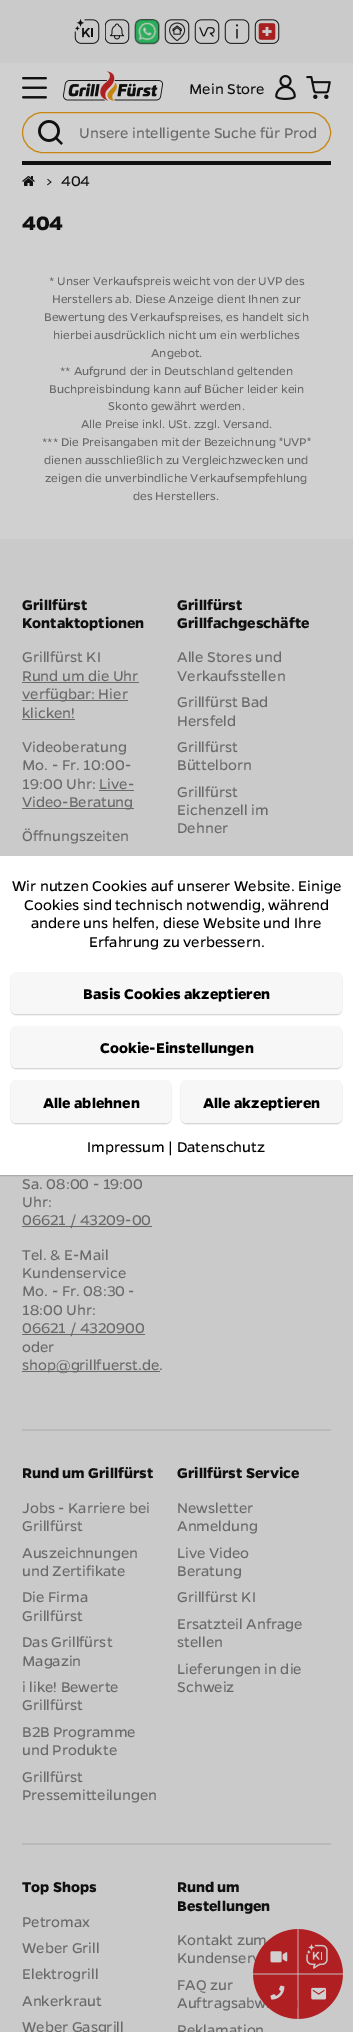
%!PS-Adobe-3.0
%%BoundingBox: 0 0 353 2032
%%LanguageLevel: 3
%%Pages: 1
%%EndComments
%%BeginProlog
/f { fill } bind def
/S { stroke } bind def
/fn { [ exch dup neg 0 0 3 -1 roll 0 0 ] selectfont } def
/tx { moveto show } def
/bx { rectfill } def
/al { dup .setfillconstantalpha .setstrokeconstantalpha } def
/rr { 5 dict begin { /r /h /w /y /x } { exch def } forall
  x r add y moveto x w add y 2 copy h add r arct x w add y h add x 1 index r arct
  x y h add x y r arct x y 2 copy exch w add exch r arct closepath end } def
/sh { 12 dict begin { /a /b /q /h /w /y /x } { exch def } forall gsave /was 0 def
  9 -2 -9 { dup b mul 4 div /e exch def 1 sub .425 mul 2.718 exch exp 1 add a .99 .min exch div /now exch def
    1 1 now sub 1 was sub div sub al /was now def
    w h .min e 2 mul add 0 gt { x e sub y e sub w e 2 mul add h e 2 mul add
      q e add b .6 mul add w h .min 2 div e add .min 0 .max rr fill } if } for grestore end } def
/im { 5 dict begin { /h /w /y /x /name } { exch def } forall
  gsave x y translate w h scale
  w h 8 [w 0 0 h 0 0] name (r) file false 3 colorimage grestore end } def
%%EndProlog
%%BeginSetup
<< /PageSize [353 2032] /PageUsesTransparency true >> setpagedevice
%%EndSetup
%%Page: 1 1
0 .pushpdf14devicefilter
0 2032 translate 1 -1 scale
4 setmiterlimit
0.816 setgray
0 0 353 2032 bx
0.792 setgray
0 0 353 63 bx
(image0.raw) 74 19 26 25 im
(image1.raw) 105 19 25 25 im
(image2.raw) 134 19 26 26 im
(image3.raw) 164 19 26 25 im
(image4.raw) 194 19 26 25 im
(image5.raw) 224 19 26 25 im
(image6.raw) 254 19 26 25 im
(image7.raw) 22 77 25 22 im
(image8.raw) 63 71 100 30 im
/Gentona-Regular 16 fn
0.063 setgray
(Mein Store) 189 94 tx
(image9.raw) 275 75 21 25 im
(image10.raw) 306 76 25 23 im
0.784 0.522 0.063 setrgbcolor
22.5 112.5 308 40 20 rr S
(image11.raw) 38 120 25 25 im
0.416 setgray
(Unsere intelligente Suche für Prod) 79 138 tx
0.063 setgray
22 161 309 4 bx
(image12.raw) 22 176 13 10 im
(>) 46 186 tx
(404) 61 186 tx
/Gentona-Bold 22 fn
(404) 22 230 tx
/Gentona-Regular 12.8 fn
0.416 setgray
(* Unser Verkaufspreis weicht von der UVP des) 49 285 tx
(Herstellers ab. Diese Anzeige dient Ihnen zur) 52 303 tx
(Bewertung des Verkaufspreises, es handelt sich) 44 321 tx
(hierbei ausdrücklich nicht um ein werbliches) 53 339 tx
(Angebot.) 151 357 tx
(** Aufgrund der in Deutschland geltenden) 60 375 tx
(Buchpreisbindung kann auf Bücher leider kein) 49 393 tx
(Skonto gewährt werden.) 108 410 tx
(Alle Preise inkl. USt. zzgl. Versand.) 81 428 tx
(*** Die Preisangaben mit der Bezeichnung "UVP") 42 446 tx
(dienen ausschließlich zu Vergleichzwecken und) 44 464 tx
(zeigen die unverbindliche Verkaufsempfehlung) 45 482 tx
(des Herstellers.) 133 500 tx
0.792 setgray
0 539 353 1493 bx
/Gentona-Bold 16 fn
0.063 setgray
(Grillfürst) 22 610 tx
(Kontaktoptionen) 22 628 tx
/Gentona-Regular 16 fn
0.416 setgray
(Grillfürst KI) 22 662 tx
(Rund um die Uhr) 22 681 tx
22 682 117 1 bx
22 700 106 1 bx
(verfügbar: Hier) 22 699 tx
(klicken!) 22 718 tx
22 719 53 1 bx
(Videoberatung) 22 752 tx
(Mo. - Fr. 10:00-) 22 770 tx
(19:00 Uhr: Live-) 22 789 tx
22 808 112 1 bx
(Video-Beratung) 22 807 tx
99 790 35 1 bx
(Öffnungszeiten) 22 841 tx
(Sa. 08:00 - 19:00) 22 1189 tx
(Uhr:) 22 1207 tx
22 1226 130 1 bx
(06621 / 43209-00) 22 1225 tx
(Tel. & E-Mail) 22 1260 tx
(Kundenservice) 22 1278 tx
(Mo. - Fr. 08:30 -) 22 1296 tx
(18:00 Uhr:) 22 1315 tx
22 1334 123 1 bx
(06621 / 4320900) 22 1333 tx
(oder) 22 1352 tx
22 1371 138 1 bx
(shop@grillfuerst.de.) 22 1370 tx
/Gentona-Bold 16 fn
0.063 setgray
(Grillfürst) 177 610 tx
(Grillfachgeschäfte) 177 628 tx
/Gentona-Regular 16 fn
0.416 setgray
(Alle Stores und) 177 662 tx
(Verkaufsstellen) 177 681 tx
(Grillfürst Bad) 177 707 tx
(Hersfeld) 177 726 tx
(Grillfürst) 177 752 tx
(Büttelborn) 177 770 tx
(Grillfürst) 177 797 tx
(Eichenzell im) 177 815 tx
(Dehner) 177 833 tx
0.729 setgray
22 1429 309 2 bx
/Gentona-Bold 16 fn
0.063 setgray
(Rund um Grillfürst) 22 1478 tx
/Gentona-Regular 16 fn
0.416 setgray
(Jobs - Karriere bei) 22 1513 tx
(Grillfürst) 22 1531 tx
(Auszeichnungen) 22 1558 tx
(und Zertifikate) 22 1576 tx
(Die Firma) 22 1602 tx
(Grillfürst) 22 1621 tx
(Das Grillfürst) 22 1647 tx
(Magazin) 22 1666 tx
(i like! Bewerte) 22 1692 tx
(Grillfürst) 22 1710 tx
(B2B Programme) 22 1737 tx
(und Produkte) 22 1755 tx
(Grillfürst) 22 1782 tx
(Pressemitteilungen) 22 1800 tx
/Gentona-Bold 16 fn
0.063 setgray
(Grillfürst Service) 177 1478 tx
/Gentona-Regular 16 fn
0.416 setgray
(Newsletter) 177 1513 tx
(Anmeldung) 177 1531 tx
(Live Video) 177 1558 tx
(Beratung) 177 1576 tx
(Grillfürst KI) 177 1602 tx
(Ersatzteil Anfrage) 177 1629 tx
(stellen) 177 1647 tx
(Lieferungen in die) 177 1674 tx
(Schweiz) 177 1692 tx
0.729 setgray
22 1843 309 2 bx
/Gentona-Bold 16 fn
0.063 setgray
(Top Shops) 22 1892 tx
/Gentona-Regular 16 fn
0.416 setgray
(Petromax) 22 1927 tx
(Weber Grill) 22 1953 tx
(Elektrogrill) 22 1979 tx
(Ankerkraut) 22 2006 tx
(Weber Gasgrill) 22 2032 tx
/Gentona-Bold 16 fn
0.063 setgray
(Rund um) 177 1892 tx
(Bestellungen) 177 1911 tx
/Gentona-Regular 16 fn
0.416 setgray
(Kontakt zum) 177 1945 tx
(Kundenser) 177 1963 tx
(FAQ zur) 177 1990 tx
(Auftragsab) 177 2008 tx
(Reklamation) 177 2035 tx
0.255 setgray
-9 857 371 319 7 0.5 0.25 sh
1 setgray
0 856 353 319 bx
0 setgray
(Wir nutzen Cookies auf unserer Website. Einige) 12 891 tx
(Cookies sind technisch notwendig, während) 24 910 tx
(andere uns helfen, diese Website und Ihre) 31 928 tx
(Erfahrung zu verbessern.) 89 947 tx
0.255 setgray
11 973 331 42 5 0.5 0.25 sh
0.969 setgray
11 972 331 42 5 rr f
/Gentona-Bold 16 fn
0 setgray
(Basis Cookies akzeptieren) 83 999 tx
0.255 setgray
11 1027 331 42 5 0.5 0.25 sh
0.969 setgray
11 1026 331 42 5 rr f
0 setgray
(Cookie-Einstellungen) 100 1053 tx
0.255 setgray
11 1081 160 43 5 0.5 0.25 sh
0.969 setgray
11 1080 160 43 5 rr f
0 setgray
(Alle ablehnen) 43 1108 tx
0.255 setgray
181 1081 161 43 5 0.5 0.25 sh
0.969 setgray
181 1080 161 43 5 rr f
0 setgray
(Alle akzeptieren) 203 1108 tx
/Gentona-Regular 16 fn
(Impressum | Datenschutz) 87 1152 tx
(image13.raw) 253 1929 90 90 im
.poppdf14devicefilter showpage
%%EOF
